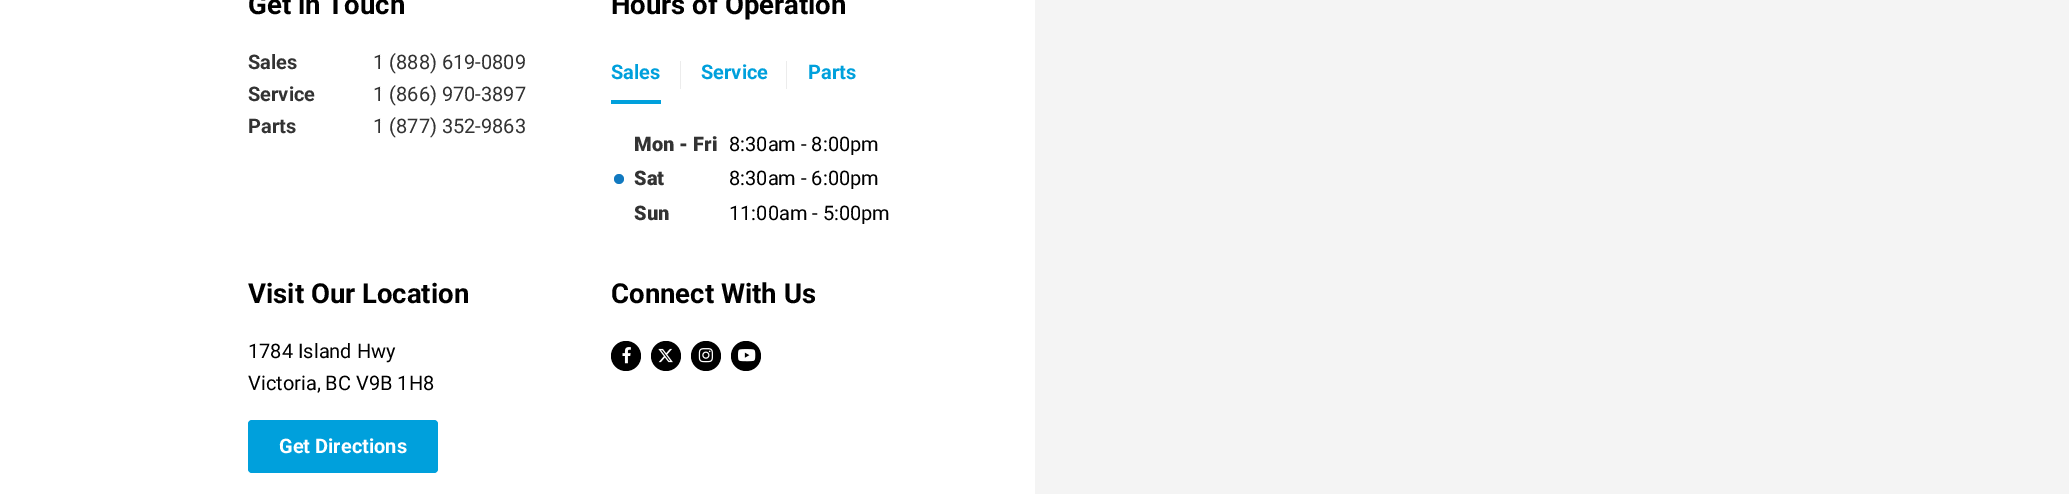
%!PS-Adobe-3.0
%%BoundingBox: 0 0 2069 494
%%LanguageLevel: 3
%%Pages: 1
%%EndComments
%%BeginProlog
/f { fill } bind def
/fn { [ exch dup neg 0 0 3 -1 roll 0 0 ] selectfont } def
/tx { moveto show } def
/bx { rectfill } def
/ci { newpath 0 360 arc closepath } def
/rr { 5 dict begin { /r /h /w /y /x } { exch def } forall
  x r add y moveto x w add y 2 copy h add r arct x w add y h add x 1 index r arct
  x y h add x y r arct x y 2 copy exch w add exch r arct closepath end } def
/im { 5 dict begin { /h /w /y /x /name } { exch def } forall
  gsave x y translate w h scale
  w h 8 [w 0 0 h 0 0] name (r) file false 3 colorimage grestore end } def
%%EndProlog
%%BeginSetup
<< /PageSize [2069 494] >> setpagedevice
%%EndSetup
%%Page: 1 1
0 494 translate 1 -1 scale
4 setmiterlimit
1 setgray
0 0 2069 494 bx
/Roboto-Bold 27.5 fn
0 setgray
(Get in Touch) 248 14 tx
/Roboto-Bold 20 fn
0.2 setgray
(Sales) 248 69 tx
/Roboto-Regular 20 fn
(1 \(888\) 619-0809) 373 69 tx
/Roboto-Bold 20 fn
(Service) 248 101 tx
/Roboto-Regular 20 fn
(1 \(866\) 970-3897) 373 101 tx
/Roboto-Bold 20 fn
(Parts) 248 133 tx
/Roboto-Regular 20 fn
(1 \(877\) 352-9863) 373 133 tx
/Roboto-Bold 27.5 fn
0 setgray
(Hours of Operation) 611 14 tx
0 0.627 0.863 setrgbcolor
611 100 50 4 bx
/Roboto-Bold 20 fn
(Sales) 611 79 tx
0.925 setgray
680 61 1 28 bx
0 0.627 0.863 setrgbcolor
(Service) 701 79 tx
0.925 setgray
786 61 1 28 bx
0 0.627 0.863 setrgbcolor
(Parts) 808 79 tx
/Roboto-Black 20 fn
0.2 setgray
(Mon - Fri) 634 151 tx
/Roboto-Regular 20 fn
0 setgray
(8:30am - 8:00pm) 729 151 tx
0.067 0.475 0.753 setrgbcolor
619 179 5 ci f
/Roboto-Black 20 fn
0.2 setgray
(Sat) 634 185 tx
/Roboto-Regular 20 fn
0 setgray
(8:30am - 6:00pm) 729 185 tx
/Roboto-Black 20 fn
0.2 setgray
(Sun) 634 220 tx
/Roboto-Regular 20 fn
0 setgray
(11:00am - 5:00pm) 729 220 tx
/Roboto-Bold 27.5 fn
(Visit Our Location) 248 303 tx
/Roboto-Regular 20 fn
(1784 Island Hwy) 248 358 tx
(Victoria, BC V9B 1H8) 248 390 tx
0 0.627 0.863 setrgbcolor
248 420 190 53 4 rr f
/Roboto-Bold 20 fn
1 setgray
(Get Directions) 279 453 tx
/Roboto-Bold 27.5 fn
0 setgray
(Connect With Us) 611 303 tx
626 356 15 ci f
(image0.raw) 622 347 9 17 im
666 356 15 ci f
(image1.raw) 658 348 15 15 im
706 356 15 ci f
(image2.raw) 698 348 15 15 im
746 356 15 ci f
(image3.raw) 737 349 19 13 im
0.957 setgray
1035 0 1034 494 bx
showpage
%%EOF
